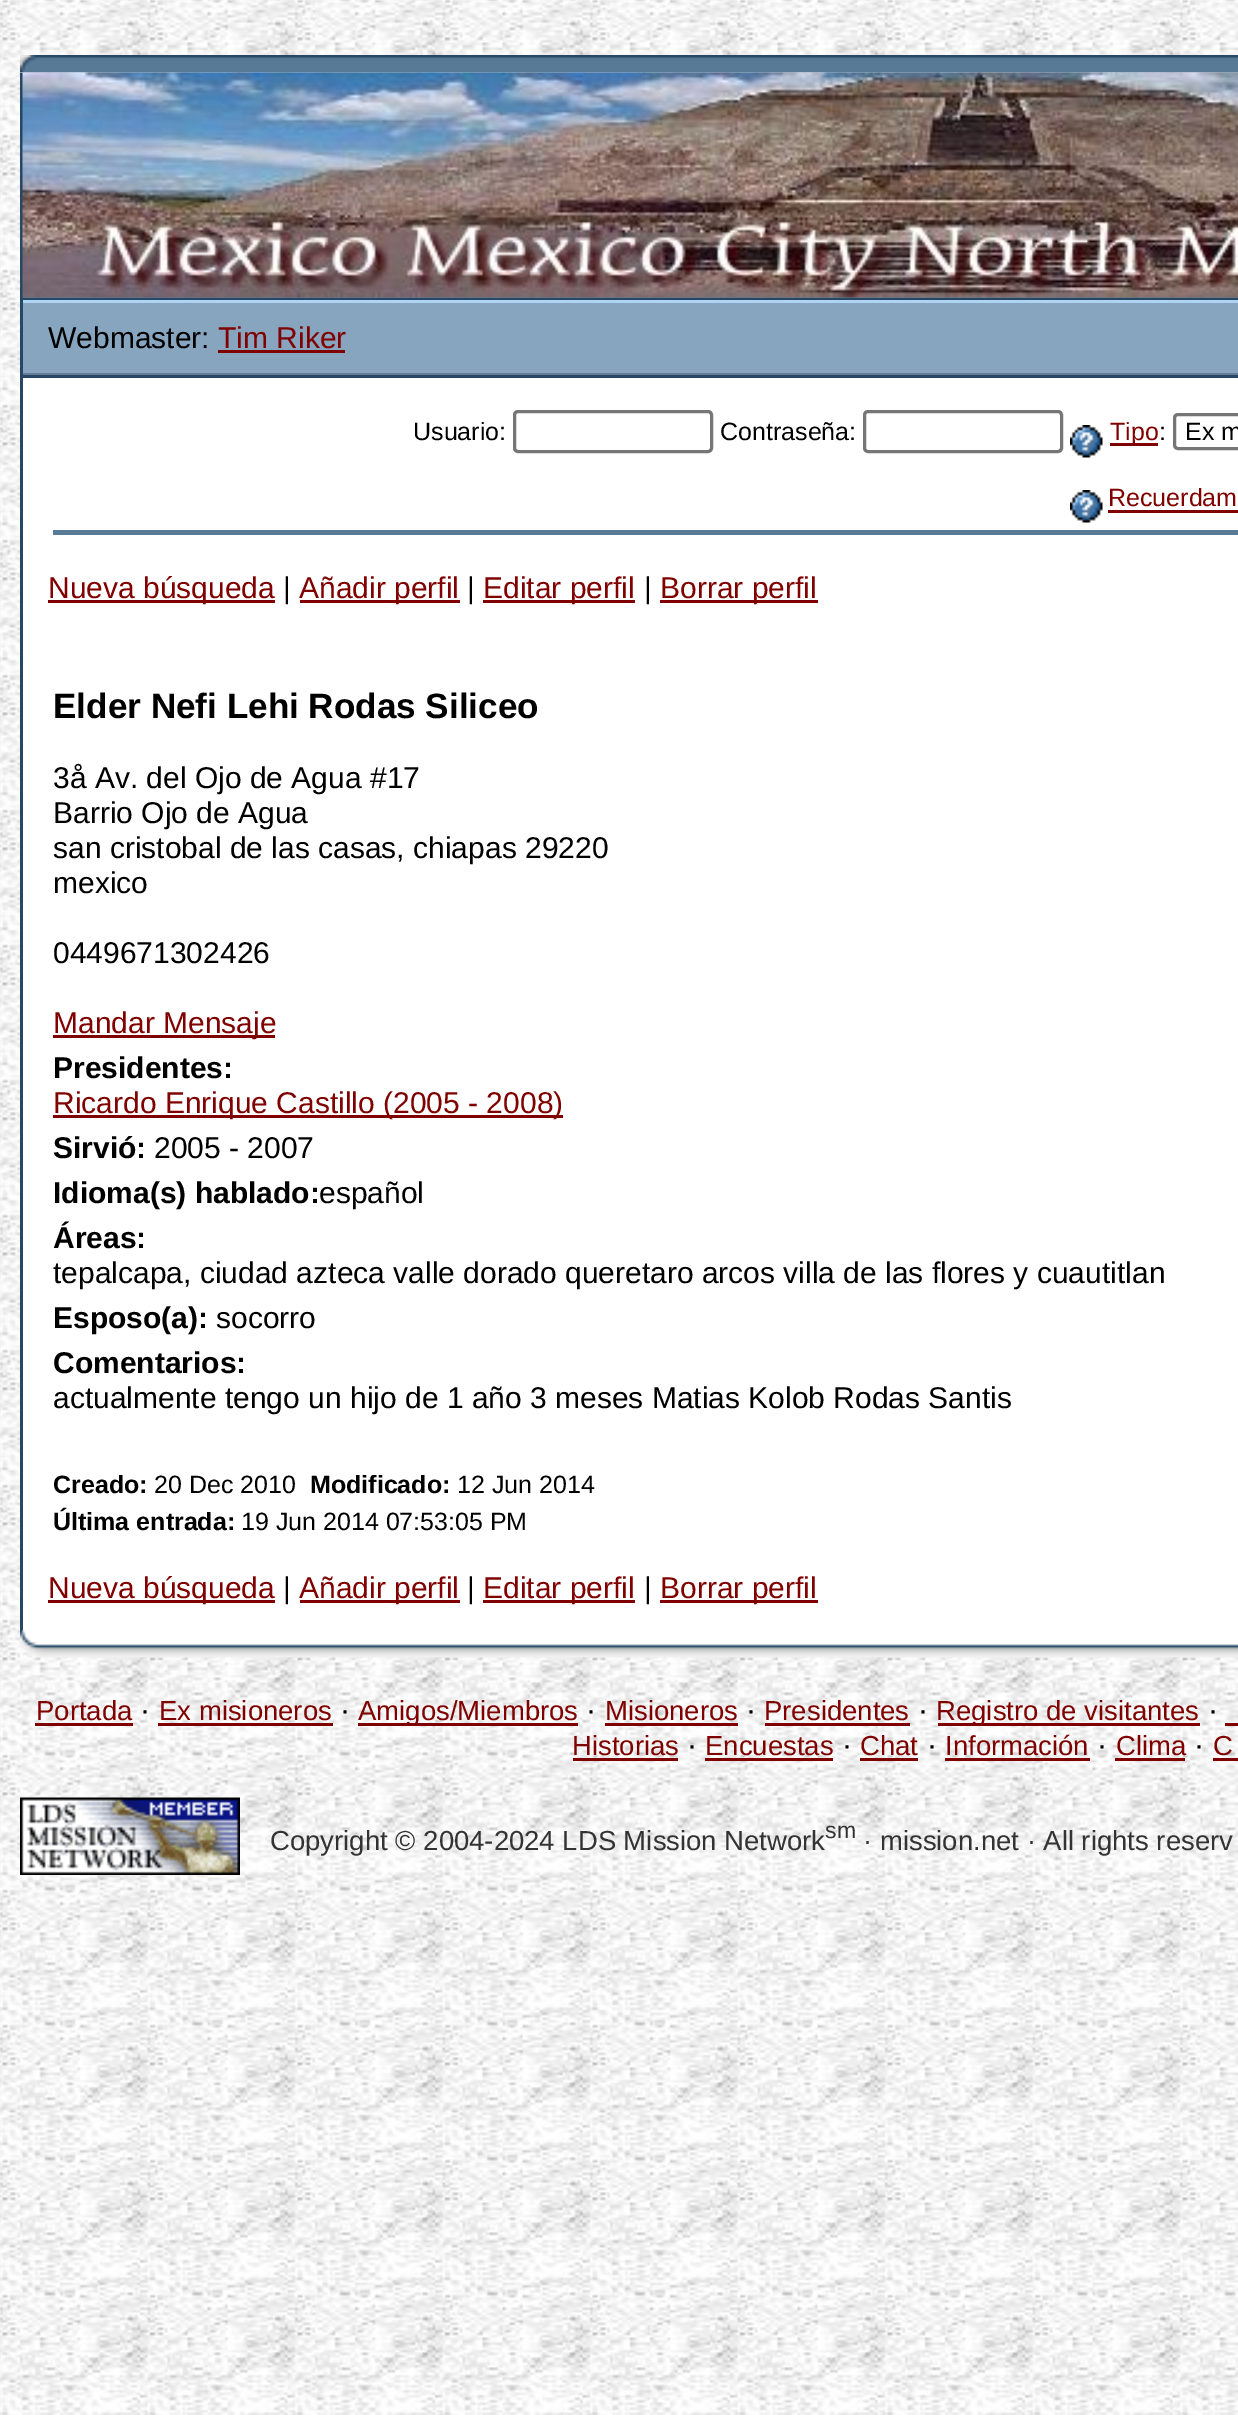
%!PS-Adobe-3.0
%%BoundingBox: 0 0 1238 2415
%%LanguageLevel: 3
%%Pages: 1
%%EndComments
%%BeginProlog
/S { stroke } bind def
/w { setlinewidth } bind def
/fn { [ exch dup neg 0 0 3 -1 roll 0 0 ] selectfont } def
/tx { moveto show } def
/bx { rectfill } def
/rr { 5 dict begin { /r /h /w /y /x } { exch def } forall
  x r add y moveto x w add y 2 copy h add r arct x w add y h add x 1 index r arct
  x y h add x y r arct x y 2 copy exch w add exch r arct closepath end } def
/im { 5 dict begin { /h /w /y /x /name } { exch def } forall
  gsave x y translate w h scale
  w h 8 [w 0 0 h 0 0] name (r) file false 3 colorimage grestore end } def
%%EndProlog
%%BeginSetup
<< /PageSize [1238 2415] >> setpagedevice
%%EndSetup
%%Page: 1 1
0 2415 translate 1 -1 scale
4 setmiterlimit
1 setgray
0 0 1238 2415 bx
(image0.raw) 0 0 1238 2415 im
(image1.raw) 20 55 1218 18 im
0.149 0.282 0.396 setrgbcolor
20 73 3 1557 bx
0.349 0.478 0.588 setrgbcolor
23 297 1215 1 bx
(image2.raw) 22 72 1216 226 im
0.149 0.282 0.396 setrgbcolor
23 298 1215 2 bx
0.686 0.827 0.949 setrgbcolor
23 300 1215 3 bx
0.529 0.647 0.749 setrgbcolor
23 303 1215 70 bx
/LiberationSans-Regular 30 fn
0 setgray
(Webmaster:) 48 348 tx
0.502 0 0 setrgbcolor
(Tim Riker) 218 348 tx
218 350 127 3 bx
0.388 0.494 0.584 setrgbcolor
23 373 1215 2 bx
0.149 0.282 0.396 setrgbcolor
23 375 1215 3 bx
1 setgray
23 378 1215 1252 bx
/LiberationSans-Regular 25 fn
0 setgray
(Usuario:) 413 440 tx
0.463 setgray
3 w
514.5 411.5 197 40 3.5 rr S
0 setgray
(Contraseña:) 720 440 tx
0.463 setgray
864.5 411.5 197 40 3.5 rr S
(image3.raw) 1070 425 33 33 im
0.502 0 0 setrgbcolor
1110 443 48 3 bx
(Tipo) 1110 440 tx
0 setgray
(:) 1159 440 tx
0.463 setgray
1174.5 414.5 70 34 3.5 rr S
0 setgray
(Ex m) 1185 440 tx
(image3.raw) 1070 490 33 33 im
0.502 0 0 setrgbcolor
(Recuerdam) 1108 506 tx
1108 510 130 3 bx
0.349 0.478 0.588 setrgbcolor
53 530 1185 5 bx
0.502 0 0 setrgbcolor
48 600 227 3 bx
/LiberationSans-Regular 30 fn
(Nueva búsqueda) 48 598 tx
0 setgray
(|) 283 598 tx
0.502 0 0 setrgbcolor
300 600 160 3 bx
(Añadir perfil) 299 598 tx
0 setgray
(|) 467 598 tx
0.502 0 0 setrgbcolor
483 600 152 3 bx
(Editar perfil) 483 598 tx
0 setgray
(|) 644 598 tx
0.502 0 0 setrgbcolor
660 600 158 3 bx
(Borrar perfil) 660 598 tx
/LiberationSans-Bold 35.1 fn
0 setgray
(Elder Nefi Lehi Rodas Siliceo) 53 718 tx
/LiberationSans-Regular 30 fn
(3å Av. del Ojo de Agua #17) 53 788 tx
(Barrio Ojo de Agua) 53 823 tx
(san cristobal de las casas, chiapas 29220) 53 858 tx
(mexico) 53 893 tx
(0449671302426) 53 963 tx
0.502 0 0 setrgbcolor
53 1035 222 3 bx
(Mandar Mensaje) 53 1033 tx
/LiberationSans-Bold 30 fn
0 setgray
(Presidentes:) 53 1078 tx
0.502 0 0 setrgbcolor
53 1115 510 3 bx
/LiberationSans-Regular 30 fn
(Ricardo Enrique Castillo \(2005 - 2008\)) 53 1113 tx
/LiberationSans-Bold 30 fn
0 setgray
(Sirvió:) 53 1158 tx
/LiberationSans-Regular 30 fn
(2005 - 2007) 154 1158 tx
/LiberationSans-Bold 30 fn
(Idioma\(s\) hablado:) 53 1203 tx
/LiberationSans-Regular 30 fn
(español) 319 1203 tx
/LiberationSans-Bold 30 fn
(Áreas:) 53 1248 tx
/LiberationSans-Regular 30 fn
(tepalcapa, ciudad azteca valle dorado queretaro arcos villa de las flores y cuautitlan) 53 1283 tx
/LiberationSans-Bold 30 fn
(Esposo\(a\):) 53 1328 tx
/LiberationSans-Regular 30 fn
(socorro) 216 1328 tx
/LiberationSans-Bold 30 fn
(Comentarios:) 53 1373 tx
/LiberationSans-Regular 30 fn
(actualmente tengo un hijo de 1 año 3 meses Matias Kolob Rodas Santis) 53 1408 tx
/LiberationSans-Bold 25 fn
(Creado:) 53 1493 tx
/LiberationSans-Regular 25 fn
(20 Dec 2010) 154 1493 tx
/LiberationSans-Bold 25 fn
(Modificado:) 310 1493 tx
/LiberationSans-Regular 25 fn
(12 Jun 2014) 457 1493 tx
/LiberationSans-Bold 25 fn
(Última entrada:) 53 1530 tx
/LiberationSans-Regular 25 fn
(19 Jun 2014 07:53:05 PM) 241 1530 tx
0.502 0 0 setrgbcolor
48 1600 227 3 bx
/LiberationSans-Regular 30 fn
(Nueva búsqueda) 48 1598 tx
0 setgray
(|) 283 1598 tx
0.502 0 0 setrgbcolor
300 1600 160 3 bx
(Añadir perfil) 299 1598 tx
0 setgray
(|) 467 1598 tx
0.502 0 0 setrgbcolor
483 1600 152 3 bx
(Editar perfil) 483 1598 tx
0 setgray
(|) 644 1598 tx
0.502 0 0 setrgbcolor
660 1600 158 3 bx
(Borrar perfil) 660 1598 tx
(image4.raw) 20 1630 1218 28 im
/LiberationSans-Regular 27.5 fn
(Portada) 36 1720 tx
35 1723 98 3 bx
/LiberationSans-Regular 30 fn
0 setgray
(·) 140 1720 tx
/LiberationSans-Regular 27.5 fn
0.502 0 0 setrgbcolor
(Ex misioneros) 159 1720 tx
158 1723 175 3 bx
/LiberationSans-Regular 30 fn
0 setgray
(·) 340 1720 tx
0.502 0 0 setrgbcolor
358 1723 220 3 bx
/LiberationSans-Regular 27.5 fn
(Amigos/Miembros) 358 1720 tx
/LiberationSans-Regular 30 fn
0 setgray
(·) 586 1720 tx
/LiberationSans-Regular 27.5 fn
0.502 0 0 setrgbcolor
(Misioneros) 605 1720 tx
605 1723 133 3 bx
/LiberationSans-Regular 30 fn
0 setgray
(·) 746 1720 tx
/LiberationSans-Regular 27.5 fn
0.502 0 0 setrgbcolor
(Presidentes) 764 1720 tx
765 1723 145 3 bx
/LiberationSans-Regular 30 fn
0 setgray
(·) 918 1720 tx
0.502 0 0 setrgbcolor
938 1723 262 3 bx
/LiberationSans-Regular 27.5 fn
(Registro de visitantes) 936 1720 tx
/LiberationSans-Regular 30 fn
0 setgray
(·) 1208 1720 tx
0.502 0 0 setrgbcolor
1225 1723 13 3 bx
/LiberationSans-Regular 27.5 fn
(Historias) 572 1755 tx
573 1758 105 3 bx
/LiberationSans-Regular 30 fn
0 setgray
(·) 687 1755 tx
/LiberationSans-Regular 27.5 fn
0.502 0 0 setrgbcolor
(Encuestas) 705 1755 tx
705 1758 128 3 bx
/LiberationSans-Regular 30 fn
0 setgray
(·) 842 1755 tx
/LiberationSans-Regular 27.5 fn
0.502 0 0 setrgbcolor
(Chat) 860 1755 tx
860 1758 58 3 bx
/LiberationSans-Regular 30 fn
0 setgray
(·) 927 1755 tx
/LiberationSans-Regular 27.5 fn
0.502 0 0 setrgbcolor
(Información) 945 1755 tx
945 1758 145 3 bx
/LiberationSans-Regular 30 fn
0 setgray
(·) 1097 1755 tx
/LiberationSans-Regular 27.5 fn
0.502 0 0 setrgbcolor
(Clima) 1116 1755 tx
1115 1758 70 3 bx
/LiberationSans-Regular 30 fn
0 setgray
(·) 1194 1755 tx
/LiberationSans-Regular 27.5 fn
0.502 0 0 setrgbcolor
(C) 1213 1755 tx
1213 1758 25 3 bx
(image5.raw) 20 1797 220 78 im
0.2 setgray
(Copyright © 2004-2024 LDS Mission Network) 270 1850 tx
/LiberationSans-Regular 23 fn
(sm) 825 1838 tx
/LiberationSans-Regular 27.5 fn
(· mission.net · All rights reserv) 863 1850 tx
showpage
%%EOF
